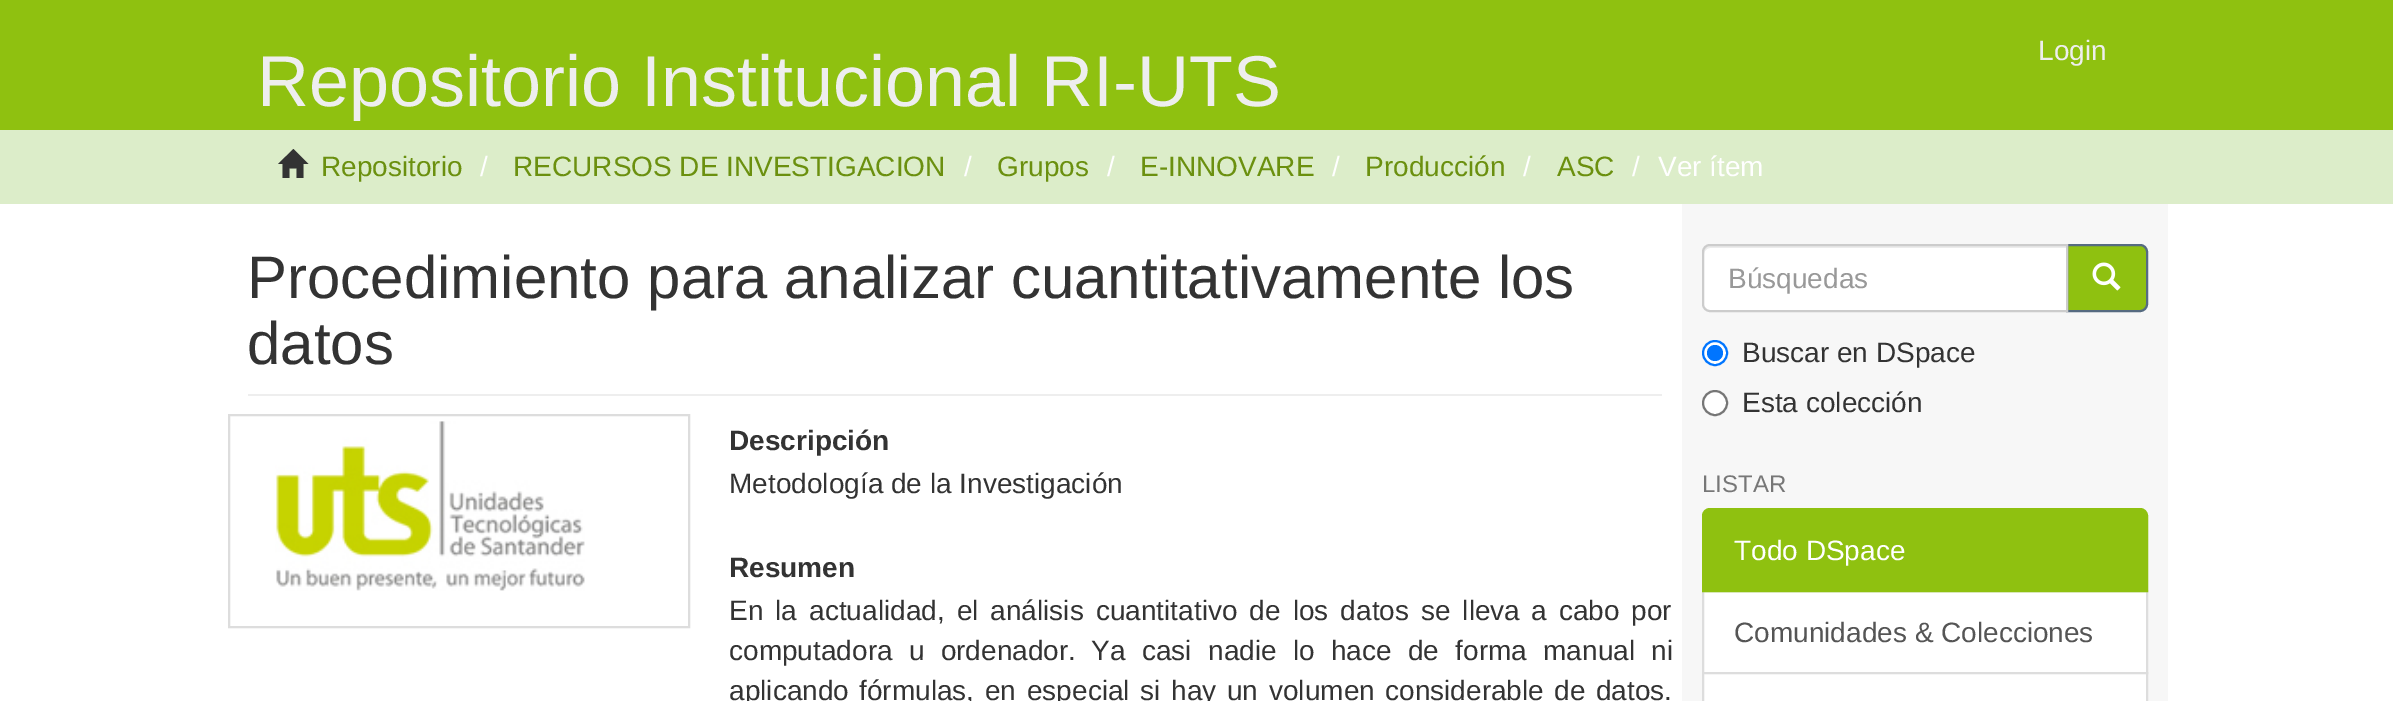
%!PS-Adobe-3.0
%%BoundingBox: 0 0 2393 701
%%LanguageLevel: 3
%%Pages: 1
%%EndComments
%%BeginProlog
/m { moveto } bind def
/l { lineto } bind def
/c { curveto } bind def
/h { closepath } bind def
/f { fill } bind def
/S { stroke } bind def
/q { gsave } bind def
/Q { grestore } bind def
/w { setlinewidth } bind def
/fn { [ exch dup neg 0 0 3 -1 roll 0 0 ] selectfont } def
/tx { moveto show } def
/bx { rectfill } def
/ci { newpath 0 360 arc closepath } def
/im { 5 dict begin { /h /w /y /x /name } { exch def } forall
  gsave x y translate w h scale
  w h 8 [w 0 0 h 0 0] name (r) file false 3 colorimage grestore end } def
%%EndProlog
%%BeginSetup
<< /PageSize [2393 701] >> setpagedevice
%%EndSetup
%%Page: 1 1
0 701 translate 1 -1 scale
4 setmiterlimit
1 setgray
0 0 2393 701 bx
0.561 0.757 0.063 setrgbcolor
0 0 2393 130 bx
/LiberationSans-Regular 72 fn
0.933 setgray
(Repositorio Institucional RI-UTS) 257 106 tx
/LiberationSans-Regular 28 fn
(Login) 2038 60 tx
0.863 0.929 0.788 setrgbcolor
0 130 2393 74 bx
0.2 setgray
278 164 m 293.5 149 l 308.5 164 l 303.5 164 l 303.5 178 l 296.5 178 l 296.5 168.5 l 289.5 168.5 l 289.5 178 l 282.5 178 l 282.5 164 l h f
0.42 0.565 0.059 setrgbcolor
(Repositorio) 321 176 tx
1 setgray
(/) 480 176 tx
0.42 0.565 0.059 setrgbcolor
(RECURSOS DE INVESTIGACION) 513 176 tx
1 setgray
(/) 964 176 tx
0.42 0.565 0.059 setrgbcolor
(Grupos) 997 176 tx
1 setgray
(/) 1107 176 tx
0.42 0.565 0.059 setrgbcolor
(E-INNOVARE) 1140 176 tx
1 setgray
(/) 1332 176 tx
0.42 0.565 0.059 setrgbcolor
(Producción) 1365 176 tx
1 setgray
(/) 1523 176 tx
0.42 0.565 0.059 setrgbcolor
(ASC) 1557 176 tx
1 setgray
(/) 1632 176 tx
(Ver ítem) 1658 176 tx
0.969 setgray
1682 204 486 497 bx
0.933 setgray
248 394 1414 2 bx
/LiberationSans-Regular 60 fn
0.2 setgray
(Procedimiento para analizar cuantitativamente los) 247 298 tx
(datos) 247 364 tx
0.867 setgray
2 w
229 415 460 212 rectstroke
(image0.raw) 275 421 310 170 im
/LiberationSans-Bold 28 fn
0.2 setgray
(Descripción) 729 450 tx
/LiberationSans-Regular 28 fn
(Metodología de la Investigación) 729 493 tx
/LiberationSans-Bold 28 fn
(Resumen) 729 577 tx
/LiberationSans-Regular 28 fn
729 620 m 4.25 0 32 (En la actualidad, el análisis cuantitativo de los datos se lleva) widthshow
1531 620 m 4.25 0 32 (a cabo por) widthshow
729 660 m 8.5 0 32 (computadora u ordenador.) widthshow
1091 660 m 8.5 0 32 (Ya casi) widthshow
1208 660 m 8.5 0 32 (nadie lo hace de forma manual ni) widthshow
(aplicando) 729 700 tx
859 700 m 3 0 32 (fórmulas, en especial) widthshow
1140 700 m 3 0 32 (si hay un volumen) widthshow
(considerable) 1385 700 tx
1554 700 m 3 0 32 (de datos.) widthshow
0.561 0.757 0.063 setrgbcolor
2067 245 m 2140 245 l 2144 245 2147 248 2147 252 c 2147 304 l 2147 308 2144 311 2140 311 c 2067 311 l h q f Q
0.337 0.42 0.506 setrgbcolor
S
1 setgray
1710 244 m 2068 244 l 2068 312 l 1710 312 l 1705.5 312 1702 308.5 1702 304 c 1702 252 l 1702 247.5 1705.5 244 1710 244 c h f
0.925 setgray
1710 248 m 2066 248 l 2066 246 l 1710 246 l 1707 246 1704 249 1704 252 c 1704 254 l 1704 251 1707 248 1710 248 c h f
0.8 setgray
1710 245 m 2067 245 l 2067 311 l 1710 311 l 1706 311 1703 308 1703 304 c 1703 252 l 1703 248 1706 245 1710 245 c h S
0.6 setgray
(Búsquedas) 1728 288 tx
(image1.raw) 2092 262 29 29 im
1 setgray
1715 353 12 ci q f Q
0 0.459 1 setrgbcolor
S
1715 353 8 ci f
0.2 setgray
(Buscar en DSpace) 1742 362 tx
1 setgray
1715 403 12 ci q f Q
0.463 setgray
S
0.2 setgray
(Esta colección) 1742 412 tx
/LiberationSans-Regular 24 fn
0.467 setgray
(LISTAR) 1702 492 tx
1 setgray
1703 591 m 2147 591 l 2147 673 l 1703 673 l h q f Q
0.867 setgray
S
0.561 0.757 0.063 setrgbcolor
1710 509 m 2140 509 l 2144 509 2147 512 2147 516 c 2147 591 l 1703 591 l 1703 516 l 1703 512 1706 509 1710 509 c h q f Q
S
/LiberationSans-Regular 28 fn
1 setgray
(Todo DSpace) 1734 560 tx
0.333 setgray
(Comunidades & Colecciones) 1734 642 tx
1 setgray
1703 673 m 2147 673 l 2147 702 l 1703 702 l h q f Q
0.867 setgray
S
showpage
%%EOF
